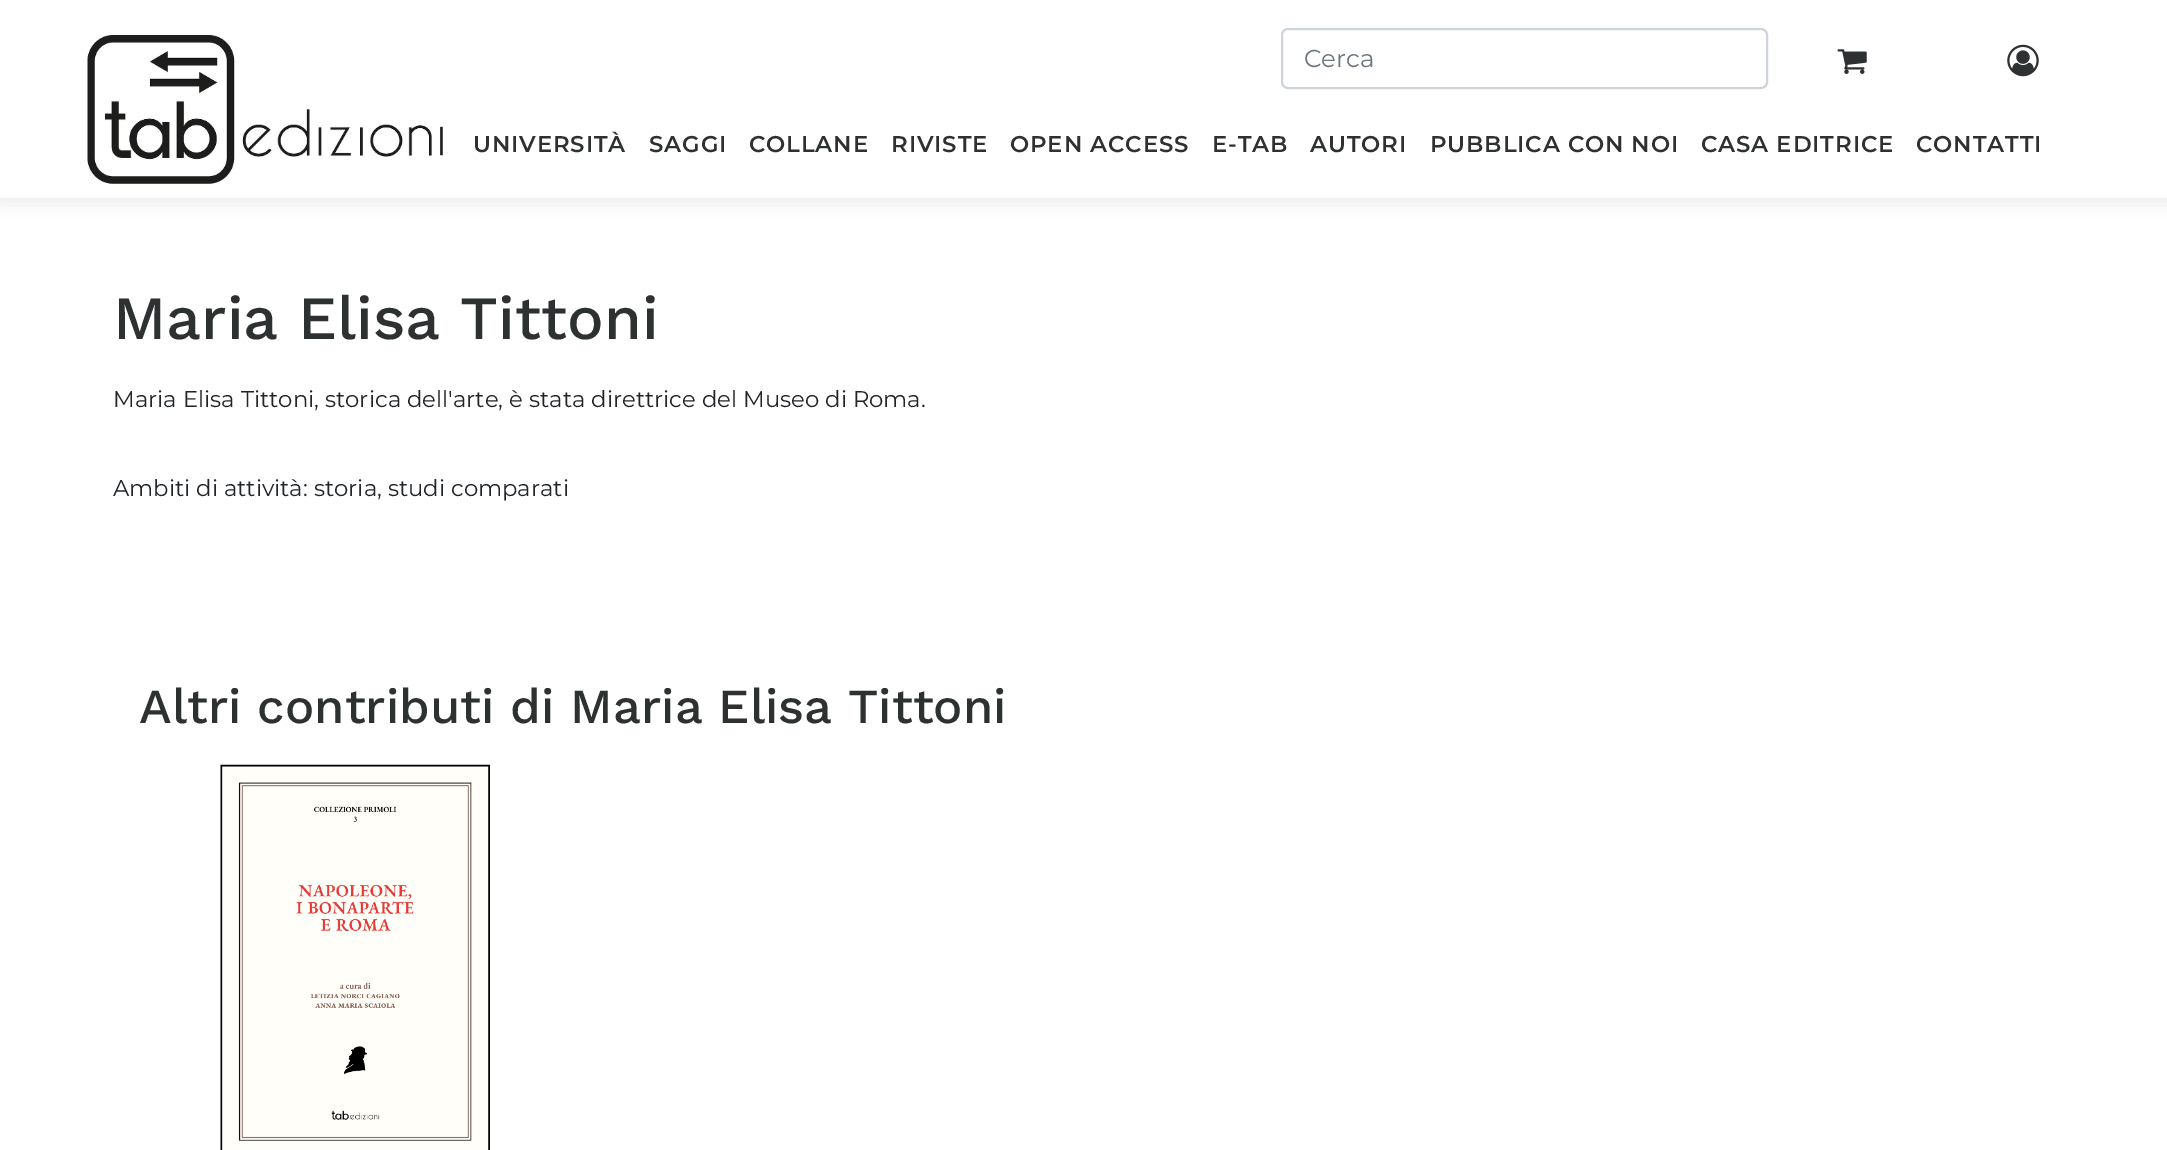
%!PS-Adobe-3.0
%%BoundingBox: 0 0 2167 1150
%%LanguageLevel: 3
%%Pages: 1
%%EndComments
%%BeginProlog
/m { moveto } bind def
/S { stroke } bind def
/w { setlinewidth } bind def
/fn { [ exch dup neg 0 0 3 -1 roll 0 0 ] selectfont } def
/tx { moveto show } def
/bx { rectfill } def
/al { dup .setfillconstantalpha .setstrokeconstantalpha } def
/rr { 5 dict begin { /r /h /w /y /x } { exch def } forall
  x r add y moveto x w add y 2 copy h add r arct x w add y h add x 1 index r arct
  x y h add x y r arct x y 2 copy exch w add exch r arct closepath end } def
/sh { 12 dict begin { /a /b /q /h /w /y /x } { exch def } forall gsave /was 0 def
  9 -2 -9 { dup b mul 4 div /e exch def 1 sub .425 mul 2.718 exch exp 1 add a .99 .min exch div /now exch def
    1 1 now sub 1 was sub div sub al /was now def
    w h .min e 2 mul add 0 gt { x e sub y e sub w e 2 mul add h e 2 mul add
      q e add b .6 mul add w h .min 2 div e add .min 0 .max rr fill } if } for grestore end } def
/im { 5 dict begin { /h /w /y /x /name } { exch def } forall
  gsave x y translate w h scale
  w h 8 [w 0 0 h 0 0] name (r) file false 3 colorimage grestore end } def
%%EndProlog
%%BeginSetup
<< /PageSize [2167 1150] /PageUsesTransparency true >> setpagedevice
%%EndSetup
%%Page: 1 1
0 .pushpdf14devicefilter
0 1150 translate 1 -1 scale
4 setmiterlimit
1 setgray
0 0 2167 1150 bx
0 setgray
-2 -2 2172 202 0 9 0.1 sh
1 setgray
0 0 2167 198 bx
0.808 0.831 0.855 setrgbcolor
2 w
1282 29 485 59 6 rr S
/Montserrat-Regular 24.5 fn
0.424 0.459 0.49 setrgbcolor
(Cerca) 1304 67 tx
(image0.raw) 1837 49 30 25 im
(image1.raw) 2007 44 32 33 im
(image2.raw) 87 35 356 149 im
/Montserrat-SemiBold 22.75 fn
0.18 0.192 0.192 setrgbcolor
473 152 m 0.9 0 (UNIVERSITÀ) ashow
649 152 m 0.9 0 (SAGGI) ashow
749 152 m 0.9 0 (COLLANE) ashow
891 152 m 0.9 0 (RIVISTE) ashow
1010 152 m 0.9 0 (OPEN ACCESS) ashow
1212 152 m 0.9 0 (E-TAB) ashow
1310 152 m 0.9 0 (AUTORI) ashow
1430 152 m 0.9 0 (PUBBLICA CON NOI) ashow
1701 152 m 0.9 0 (CASA EDITRICE) ashow
1916 152 m 0.9 0 (CONTATTI) ashow
/WorkSans-Medium 61.25 fn
(Maria Elisa Tittoni) 113 339 tx
/Montserrat-Regular 22.75 fn
0.129 0.145 0.161 setrgbcolor
(Maria Elisa Tittoni, storica dell'arte, è stata direttrice del Museo di Roma.) 113 407 tx
(Ambiti di attività: storia, studi comparati) 113 496 tx
/WorkSans-Medium 49 fn
0.18 0.192 0.192 setrgbcolor
(Altri contributi di Maria Elisa Tittoni) 139 723 tx
(image3.raw) 220 764 270 386 im
.poppdf14devicefilter showpage
%%EOF
